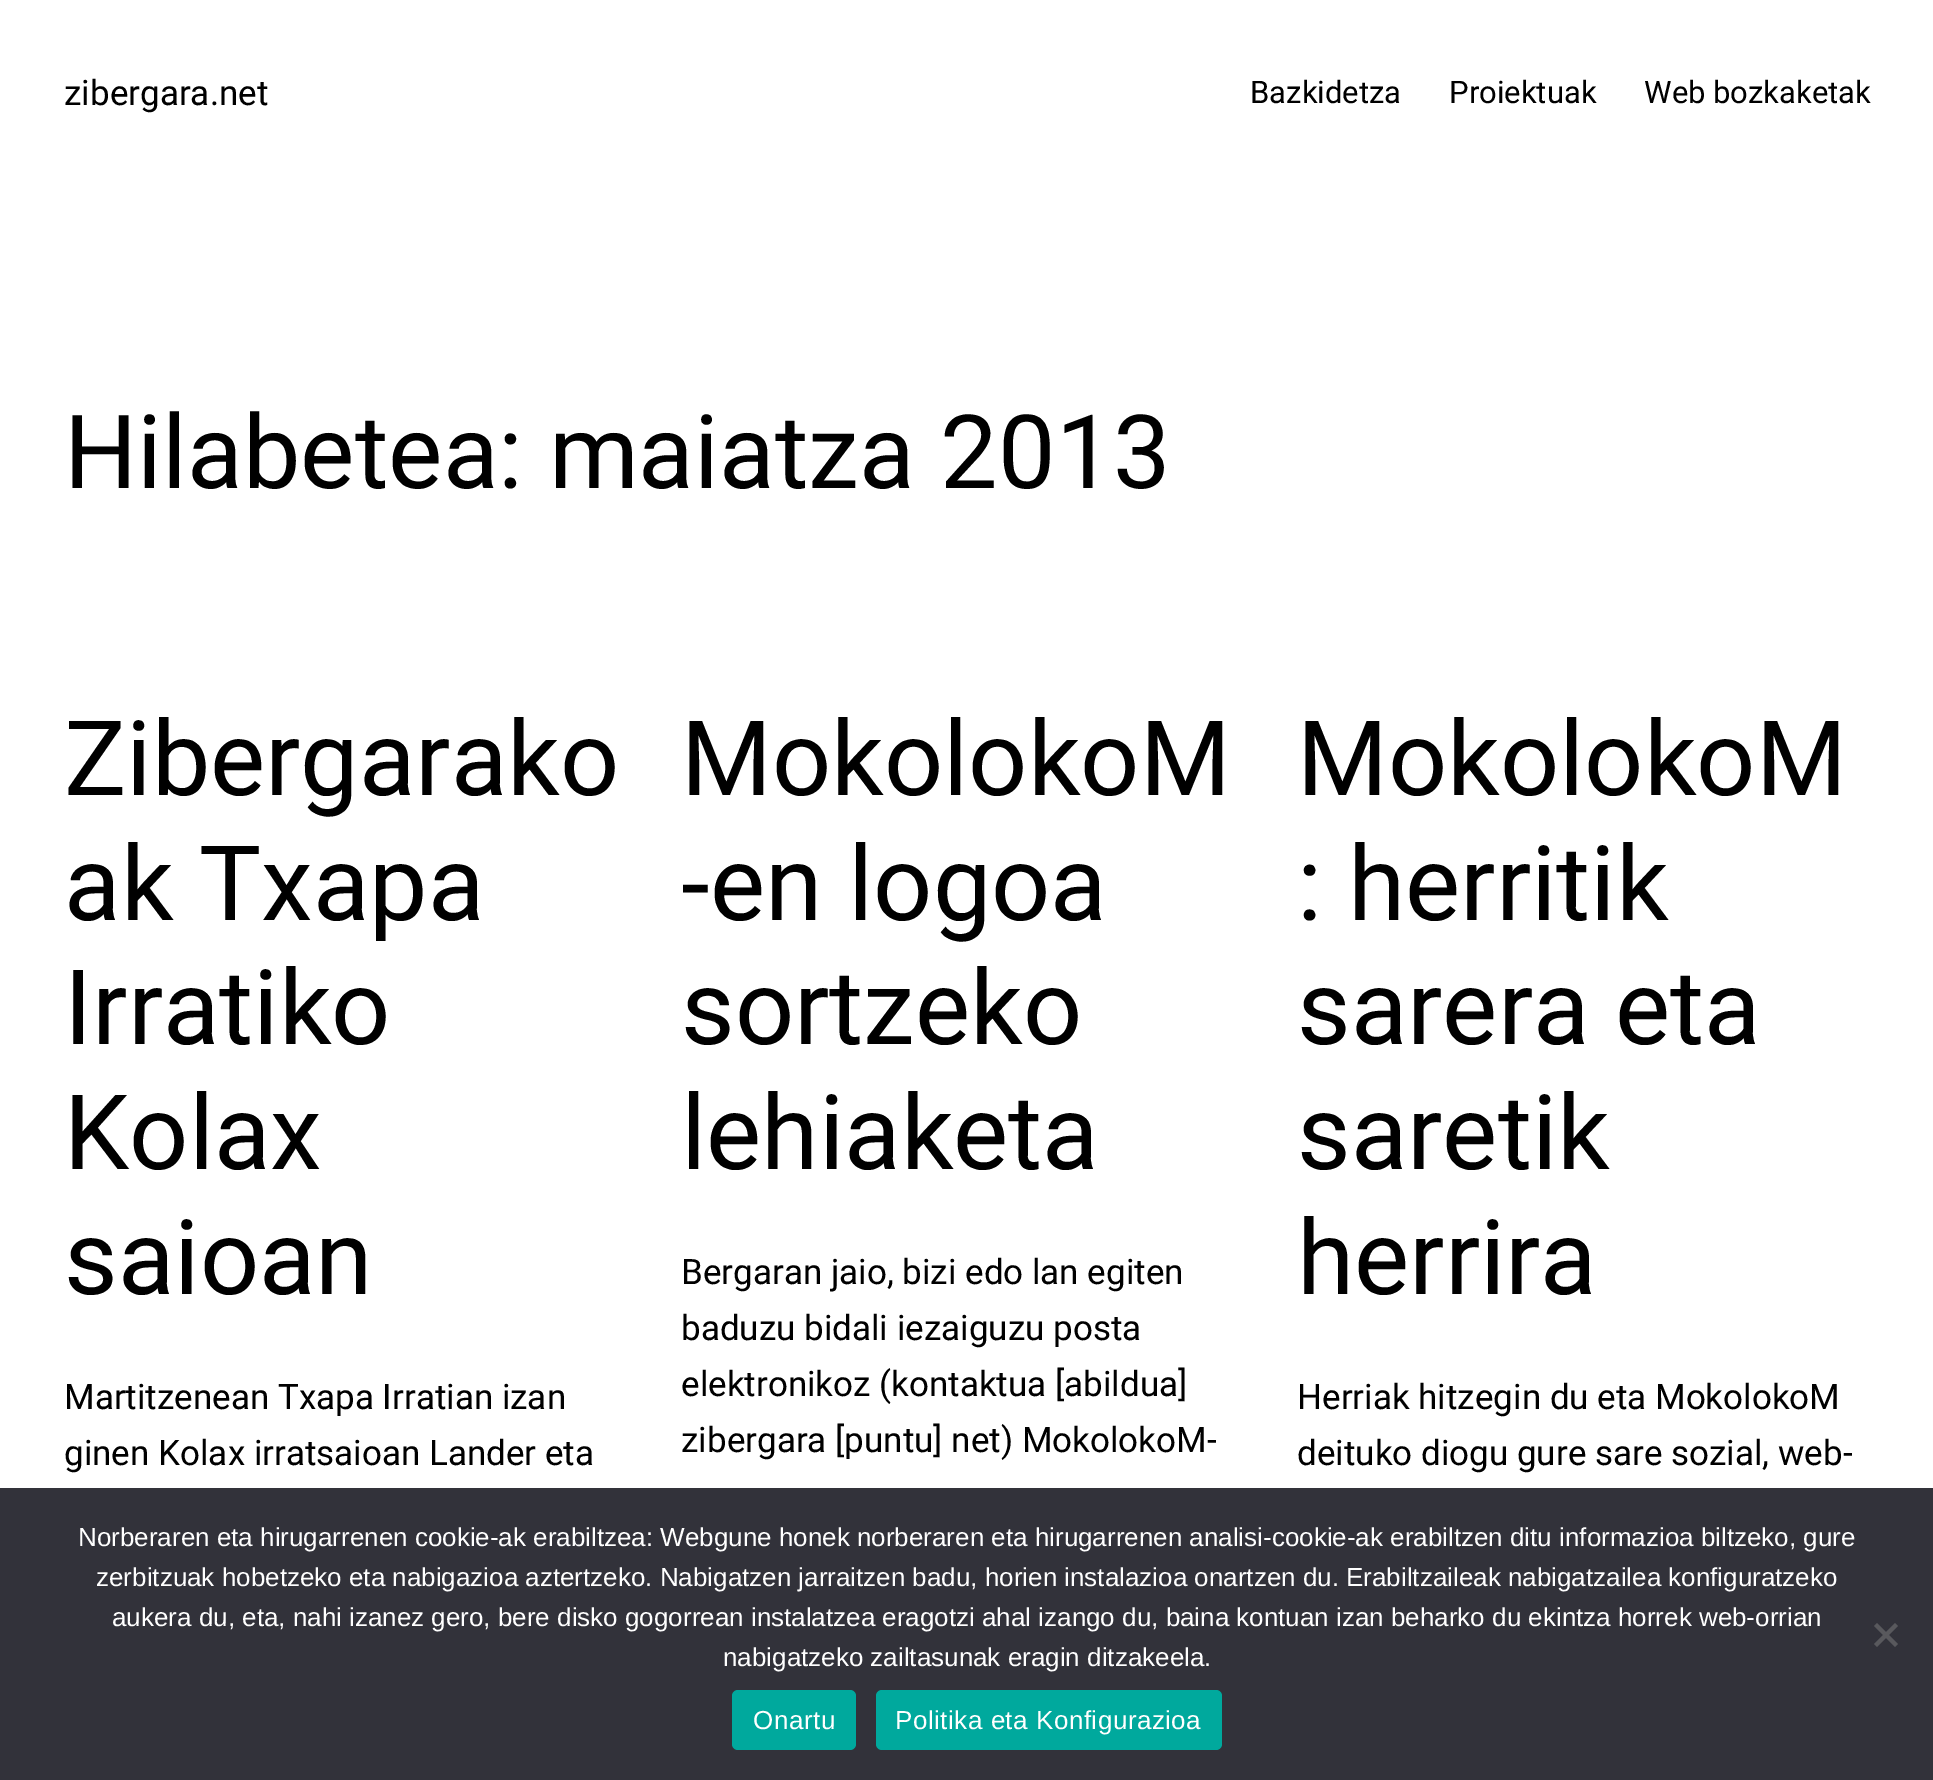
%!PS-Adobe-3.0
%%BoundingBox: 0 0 1933 1780
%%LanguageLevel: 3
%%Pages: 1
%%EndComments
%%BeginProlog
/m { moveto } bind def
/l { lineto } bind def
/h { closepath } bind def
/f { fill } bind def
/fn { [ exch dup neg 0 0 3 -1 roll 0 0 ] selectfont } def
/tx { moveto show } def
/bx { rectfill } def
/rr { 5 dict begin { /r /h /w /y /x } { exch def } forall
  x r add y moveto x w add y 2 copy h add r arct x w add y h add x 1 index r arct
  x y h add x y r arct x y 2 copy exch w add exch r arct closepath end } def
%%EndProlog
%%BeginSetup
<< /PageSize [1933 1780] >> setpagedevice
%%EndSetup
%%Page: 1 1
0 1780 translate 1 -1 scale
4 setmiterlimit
1 setgray
0 0 1933 1780 bx
/Roboto-Regular 35 fn
0 setgray
(zibergara.net) 64 105 tx
/Roboto-Regular 31 fn
(Bazkidetza) 1250 103 tx
(Proiektuak) 1449 103 tx
(Web bozkaketak) 1644 103 tx
/Roboto-Regular 102.5 fn
(Hilabetea: maiatza 2013) 64 488 tx
/Roboto-Regular 104 fn
(Zibergarako) 64 795 tx
(ak Txapa) 64 920 tx
(Irratiko) 64 1044 tx
(Kolax) 64 1169 tx
(saioan) 64 1294 tx
/Roboto-Regular 35 fn
(Martitzenean Txapa Irratian izan) 64 1409 tx
(ginen Kolax irratsaioan Lander eta) 64 1465 tx
/Roboto-Regular 104 fn
(MokolokoM) 681 795 tx
(-en logoa) 681 920 tx
(sortzeko) 681 1044 tx
(lehiaketa) 681 1169 tx
/Roboto-Regular 35 fn
(Bergaran jaio, bizi edo lan egiten) 681 1284 tx
(baduzu bidali iezaiguzu posta) 681 1340 tx
(elektronikoz \(kontaktua [abildua]) 681 1396 tx
(zibergara [puntu] net\) MokolokoM-) 681 1452 tx
/Roboto-Regular 104 fn
(MokolokoM) 1297 795 tx
(: herritik) 1297 920 tx
(sarera eta) 1297 1044 tx
(saretik) 1297 1169 tx
(herrira) 1297 1294 tx
/Roboto-Regular 35 fn
(Herriak hitzegin du eta MokolokoM) 1297 1409 tx
(deituko diogu gure sare sozial, web-) 1297 1465 tx
0.196 0.196 0.227 setrgbcolor
0 1488 1933 292 bx
/LiberationSans-Regular 26 fn
1 setgray
(Norberaren eta hirugarrenen cookie-ak erabiltzea: Webgune honek norberaren eta hirugarrenen analisi-cookie-ak erabiltzen ditu informazioa biltzeko, gure) 78 1546 tx
(zerbitzuak hobetzeko eta nabigazioa aztertzeko. Nabigatzen jarraitzen badu, horien instalazioa onartzen du. Erabiltzaileak nabigatzailea konfiguratzeko) 96 1586 tx
(aukera du, eta, nahi izanez gero, bere disko gogorrean instalatzea eragotzi ahal izango du, baina kontuan izan beharko du ekintza horrek web-orrian) 112 1626 tx
(nabigatzeko zailtasunak eragin ditzakeela.) 723 1666 tx
0.349 0.349 0.365 setrgbcolor
1895 1623 m 1898 1626 l 1877 1647 l 1874 1644 l h f
1874 1626 m 1877 1623 l 1898 1644 l 1895 1647 l h f
0 0.663 0.616 setrgbcolor
732 1690 124 60 6 rr f
1 setgray
753 1729 m 0.5 0 (Onartu) ashow
0 0.663 0.616 setrgbcolor
876 1690 346 60 6 rr f
1 setgray
895 1729 m 0.5 0 (Politika eta Konfigurazioa) ashow
showpage
%%EOF
